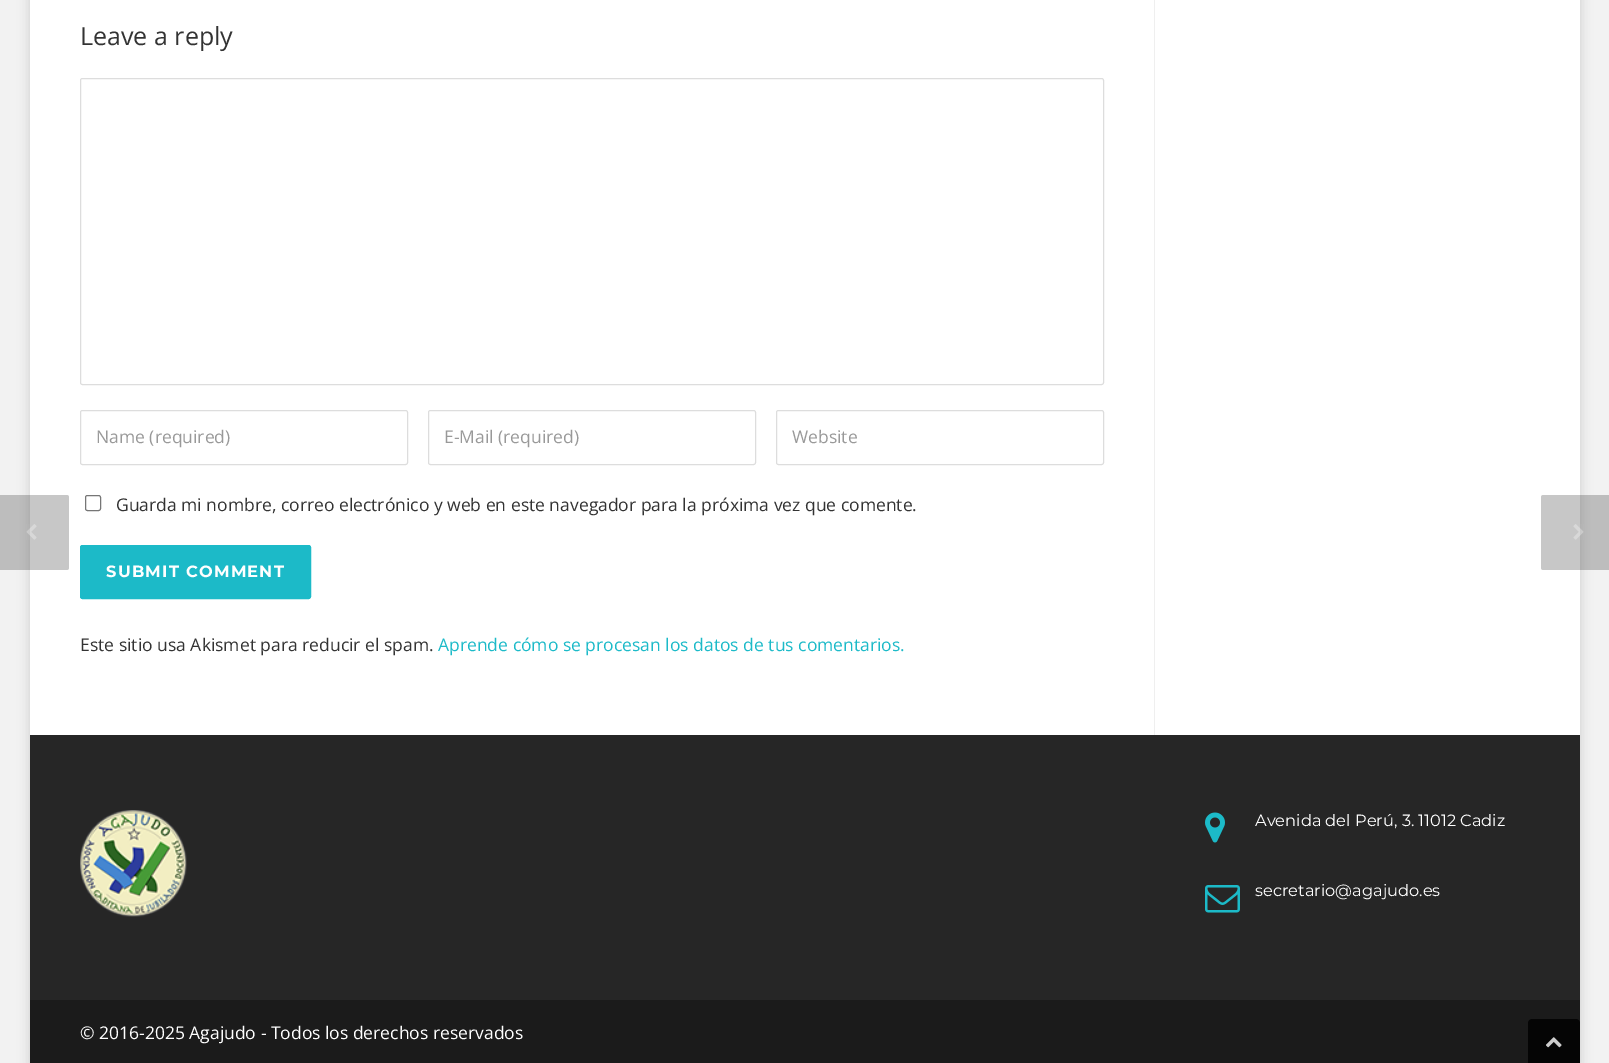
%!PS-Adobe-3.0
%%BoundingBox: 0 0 1609 1063
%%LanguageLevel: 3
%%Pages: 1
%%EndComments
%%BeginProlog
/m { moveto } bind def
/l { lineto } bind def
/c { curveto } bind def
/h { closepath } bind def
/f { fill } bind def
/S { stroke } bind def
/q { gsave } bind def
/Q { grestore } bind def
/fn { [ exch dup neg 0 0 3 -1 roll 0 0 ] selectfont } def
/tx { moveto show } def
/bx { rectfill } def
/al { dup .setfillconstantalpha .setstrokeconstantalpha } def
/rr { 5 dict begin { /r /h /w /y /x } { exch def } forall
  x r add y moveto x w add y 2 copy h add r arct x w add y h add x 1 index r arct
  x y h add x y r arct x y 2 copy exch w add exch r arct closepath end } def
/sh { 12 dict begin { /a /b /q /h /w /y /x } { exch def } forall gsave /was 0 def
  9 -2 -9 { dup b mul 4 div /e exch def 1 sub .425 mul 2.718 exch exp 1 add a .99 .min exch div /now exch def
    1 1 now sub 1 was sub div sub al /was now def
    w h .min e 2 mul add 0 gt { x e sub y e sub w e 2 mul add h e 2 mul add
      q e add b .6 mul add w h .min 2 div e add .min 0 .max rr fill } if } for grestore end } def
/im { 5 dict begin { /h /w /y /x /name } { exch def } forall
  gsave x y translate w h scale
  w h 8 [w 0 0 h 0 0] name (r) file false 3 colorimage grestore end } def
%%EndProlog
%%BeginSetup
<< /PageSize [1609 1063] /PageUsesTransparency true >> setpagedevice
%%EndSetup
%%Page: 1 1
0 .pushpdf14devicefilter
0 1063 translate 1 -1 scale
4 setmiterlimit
0.949 setgray
0 0 1609 1063 bx
0 setgray
30 -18 1550 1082 0 6 0.15 sh
1 setgray
30 0 1550 735 bx
0.937 setgray
1154 0 1 735 bx
/OpenSans-Regular 25 fn
0.2 setgray
(Leave a reply) 80 45 tx
0.867 setgray
80.5 78.5 1023 306 2 rr S
80.5 410.5 327 54 2 rr S
/OpenSans-Regular 17.5 fn
0.6 setgray
(Name \(required\)) 96 443 tx
0.867 setgray
428.5 410.5 327 54 2 rr S
0.6 setgray
(E-Mail \(required\)) 444 443 tx
0.867 setgray
776.5 410.5 327 54 2 rr S
0.6 setgray
(Website) 792 443 tx
0.463 setgray
85.5 495.5 15 15 2 rr S
0.2 setgray
(Guarda mi nombre, correo electrónico y web en este navegador para la próxima vez que comente.) 116 511 tx
0.11 0.729 0.784 setrgbcolor
80.5 545.5 230 53 2 rr q f Q
S
/Montserrat-Bold 16.25 fn
1 setgray
106 577 m 1.25 0 (SUBMIT COMMENT) ashow
/OpenSans-Regular 17.5 fn
0.2 setgray
(Este sitio usa Akismet para reducir el spam.) 80 651 tx
0.11 0.729 0.784 setrgbcolor
(Aprende cómo se procesan los datos de tus comentarios.) 438 651 tx
0.3 al
0.267 setgray
-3 495 m 66.5 495 l 68 495 69 496 69 497.5 c 69 567.5 l 69 569 68 570 66.5 570 c -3 570 l h f
1 al
(image0.raw) 26 524 11 16 im
0.3 al
1543.5 495 m 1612 495 l 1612 570 l 1543.5 570 l 1542 570 1541 569 1541 567.5 c 1541 497.5 l 1541 496 1542 495 1543.5 495 c h f
1 al
(image1.raw) 1573 524 11 16 im
0.149 setgray
30 735 1550 265 bx
(image2.raw) 80 810 107 107 im
(image3.raw) 1205 812 20 31 im
/Montserrat-Regular 16.25 fn
1 setgray
(Avenida del Perú, 3. 11012 Cadiz) 1255 826 tx
(image4.raw) 1205 885 35 28 im
(secretario@agajudo.es) 1255 896 tx
0.106 setgray
30 1000 1550 63 bx
/OpenSans-Regular 17.5 fn
1 setgray
(© 2016-2025 Agajudo - Todos los derechos reservados) 80 1039 tx
0.02 setgray
1532 1019 m 1576 1019 l 1578 1019 1580 1021 1580 1023 c 1580 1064 l 1528 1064 l 1528 1023 l 1528 1021 1530 1019 1532 1019 c h f
(image5.raw) 1546 1037 16 11 im
.poppdf14devicefilter showpage
%%EOF
